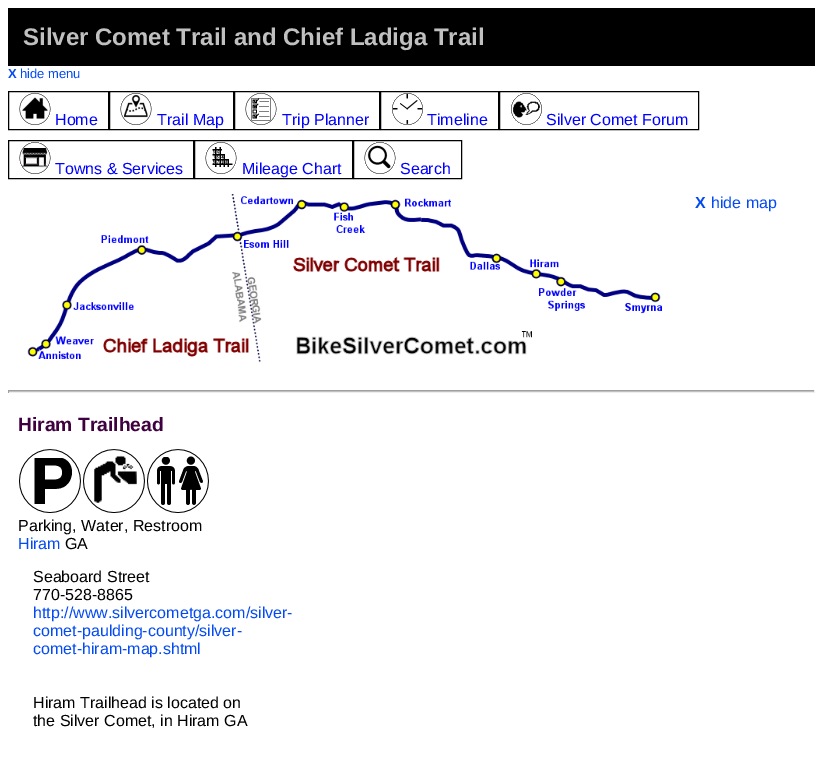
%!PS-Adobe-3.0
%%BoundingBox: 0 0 823 759
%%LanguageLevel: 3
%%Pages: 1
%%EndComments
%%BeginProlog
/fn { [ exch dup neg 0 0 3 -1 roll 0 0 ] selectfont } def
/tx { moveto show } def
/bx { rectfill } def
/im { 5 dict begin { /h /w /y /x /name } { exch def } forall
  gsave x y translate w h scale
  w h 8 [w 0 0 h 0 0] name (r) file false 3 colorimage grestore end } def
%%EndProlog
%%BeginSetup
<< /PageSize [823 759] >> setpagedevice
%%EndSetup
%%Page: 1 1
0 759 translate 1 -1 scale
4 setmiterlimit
1 setgray
0 0 823 759 bx
0 setgray
8 8 807 58 bx
/LiberationSans-Bold 24 fn
0.753 setgray
(Silver Comet Trail and Chief Ladiga Trail) 23 45 tx
/LiberationSans-Bold 13 fn
0.012 0.29 0.953 setrgbcolor
(X) 8 78 tx
/LiberationSans-Regular 13 fn
(hide menu) 20 78 tx
0 setgray
8.5 91.5 100 38 rectstroke
(image0.raw) 19 93 32 32 im
/LiberationSans-Regular 16 fn
0 0 1 setrgbcolor
(Home) 55 125 tx
0 setgray
109.5 91.5 124 38 rectstroke
(image1.raw) 120 93 32 32 im
0 0 1 setrgbcolor
(Trail Map) 157 125 tx
0 setgray
234.5 91.5 145 38 rectstroke
(image2.raw) 245 93 32 32 im
0 0 1 setrgbcolor
(Trip Planner) 282 125 tx
0 setgray
380.5 91.5 118 38 rectstroke
(image3.raw) 392 93 31 32 im
0 0 1 setrgbcolor
(Timeline) 427 125 tx
0 setgray
499.5 91.5 199 38 rectstroke
(image4.raw) 511 93 31 32 im
0 0 1 setrgbcolor
(Silver Comet Forum) 546 125 tx
0 setgray
8.5 140.5 185 38 rectstroke
(image5.raw) 19 142 32 32 im
0 0 1 setrgbcolor
(Towns & Services) 55 174 tx
0 setgray
194.5 140.5 158 38 rectstroke
(image6.raw) 205 142 32 32 im
0 0 1 setrgbcolor
(Mileage Chart) 242 174 tx
0 setgray
353.5 140.5 108 38 rectstroke
(image7.raw) 364 142 32 32 im
0 0 1 setrgbcolor
(Search) 400 174 tx
(image8.raw) 27 194 635 169 im
/LiberationSans-Bold 16 fn
0.012 0.29 0.953 setrgbcolor
(X) 695 208 tx
/LiberationSans-Regular 16 fn
(hide map) 711 208 tx
0.753 setgray
8 391 807 1 bx
0.624 setgray
8 390 807 1 bx
0.933 setgray
814 390 1 3 bx
8 392 807 1 bx
0.624 setgray
8 390 1 3 bx
/LiberationSans-Bold 19.25 fn
0.251 0 0.251 setrgbcolor
(Hiram Trailhead) 18 431 tx
(image9.raw) 19 449 62 64 im
(image10.raw) 83 449 62 64 im
(image11.raw) 147 449 62 64 im
/LiberationSans-Regular 16 fn
0 setgray
(Parking, Water, Restroom) 18 531 tx
0.012 0.29 0.953 setrgbcolor
(Hiram) 18 549 tx
0 setgray
(GA) 65 549 tx
(Seaboard Street) 33 582 tx
(770-528-8865) 33 600 tx
0.012 0.29 0.953 setrgbcolor
(http://www.silvercometga.com/silver-) 33 618 tx
(comet-paulding-county/silver-) 33 636 tx
(comet-hiram-map.shtml) 33 654 tx
0 setgray
(Hiram Trailhead is located on) 33 708 tx
(the Silver Comet, in Hiram GA) 33 726 tx
showpage
%%EOF
